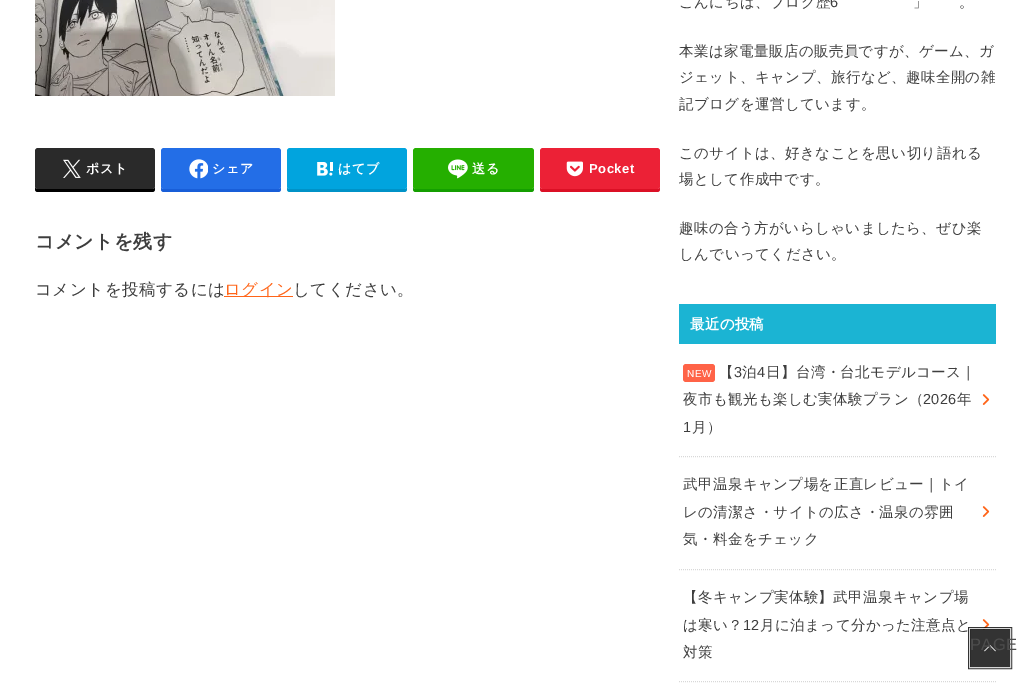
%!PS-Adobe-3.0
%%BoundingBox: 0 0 1031 688
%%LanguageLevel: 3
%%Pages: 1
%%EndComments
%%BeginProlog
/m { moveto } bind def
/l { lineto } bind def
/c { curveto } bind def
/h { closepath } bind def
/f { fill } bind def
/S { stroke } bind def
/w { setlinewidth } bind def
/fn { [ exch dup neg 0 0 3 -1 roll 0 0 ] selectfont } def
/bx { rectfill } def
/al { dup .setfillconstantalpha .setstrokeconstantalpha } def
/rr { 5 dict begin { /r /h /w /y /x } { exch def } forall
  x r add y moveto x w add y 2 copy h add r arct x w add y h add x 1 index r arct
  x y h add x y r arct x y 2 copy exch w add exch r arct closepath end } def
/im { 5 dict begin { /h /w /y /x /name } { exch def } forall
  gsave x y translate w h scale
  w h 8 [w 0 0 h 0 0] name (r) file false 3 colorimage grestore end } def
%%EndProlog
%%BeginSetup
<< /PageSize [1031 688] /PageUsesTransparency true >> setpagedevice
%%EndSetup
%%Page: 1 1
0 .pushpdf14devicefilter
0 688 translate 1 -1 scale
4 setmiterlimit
1 setgray
0 0 1031 688 bx
(image0.raw) 35 0 300 96 im
0 setgray
35 186 m 35 189 l 35 191 36 192 38 192 c 152 192 l 154 192 155 191 155 189 c 155 186 l 155 188 154 189 152 189 c 38 189 l 36 189 35 188 35 186 c h f
0.165 setgray
35 148 120 41 3 rr f
(image1.raw) 63 159 18 19 im
/WenQuanYiZenHei-Bold 13 fn
1 setgray
86 173 m 0.5 0 (ポスト) ashow
0.094 0.369 0.847 setrgbcolor
161 186 m 161 189 l 161 191 162 192 164 192 c 278 192 l 280 192 281 191 281 189 c 281 186 l 281 188 280 189 278 189 c 164 189 l 162 189 161 188 161 186 c h f
0.137 0.431 0.906 setrgbcolor
161 148 120 41 3 rr f
(image2.raw) 189 159 19 20 im
1 setgray
212 173 m 0.5 0 (シェア) ashow
0 0.573 0.78 setrgbcolor
287 186 m 287 189 l 287 191 288 192 290 192 c 404 192 l 406 192 407 191 407 189 c 407 186 l 407 188 406 189 404 189 c 290 189 l 288 189 287 188 287 186 c h f
0.004 0.643 0.871 setrgbcolor
287 148 120 41 3 rr f
(image3.raw) 317 162 16 14 im
1 setgray
338 173 m 0.5 0 (はてブ) ashow
0.078 0.62 0 setrgbcolor
413 186 m 413 189 l 413 191 414 192 416 192 c 531 192 l 533 192 534 191 534 189 c 534 186 l 534 188 533 189 531 189 c 416 189 l 414 189 413 188 413 186 c h f
0.145 0.686 0 setrgbcolor
413 148 121 41 3 rr f
(image4.raw) 448 159 20 20 im
1 setgray
472 173 m 0.5 0 (送る) ashow
0.859 0.063 0.145 setrgbcolor
540 186 m 540 189 l 540 191 541 192 543 192 c 657 192 l 659 192 660 191 660 189 c 660 186 l 660 188 659 189 657 189 c 543 189 l 541 189 540 188 540 186 c h f
0.925 0.129 0.212 setrgbcolor
540 148 120 41 3 rr f
(image5.raw) 566 161 17 16 im
/LiberationSans-Bold 13 fn
1 setgray
589 173 m 0.5 0 (Pocket) ashow
/WenQuanYiZenHei-Bold 19 fn
0.243 setgray
35 248 m 0.25 0 (コメントを残す) ashow
/WenQuanYiZenHei-Medium 16.5 fn
35 295 m 0.5 0 (コメントを投稿するには) ashow
1 0.396 0.098 setrgbcolor
224 296 69 1 bx
224 295 m 0.5 0 (ログイン) ashow
0.243 setgray
293 295 m 0.5 0 (してください。) ashow
/WenQuanYiZenHei-Medium 14.5 fn
679 7 m 0.4 0 (こんにちは、ブログ歴) ashow
/LiberationSans-Regular 14.5 fn
830 7 m 0.4 0 (6) ashow
/WenQuanYiZenHei-Medium 14.5 fn
913 7 m 0.4 0 (」) ashow
959 7 m 0.4 0 (。) ashow
679 56 m 0.4 0 (本業は家電量販店の販売員ですが、ゲーム、ガ) ashow
679 82 m 0.4 0 (ジェット、キャンプ、旅行など、趣味全開の雑) ashow
679 109 m 0.4 0 (記ブログを運営しています。) ashow
679 158 m 0.4 0 (このサイトは、好きなことを思い切り語れる) ashow
679 184 m 0.4 0 (場として作成中です。) ashow
679 233 m 0.4 0 (趣味の合う方がいらしゃいましたら、ぜひ楽) ashow
679 259 m 0.4 0 (しんでいってください。) ashow
0.106 0.706 0.827 setrgbcolor
679 304 317 40 bx
/WenQuanYiZenHei-Bold 14.5 fn
1 setgray
690 329 m 0.25 0 (最近の投稿) ashow
0.847 setgray
[1 1] 0 setdash
679 456.5 m 996 456.5 l S
1 0.388 0.278 setrgbcolor
683 364 32 18 3 rr f
/LiberationSans-Regular 10 fn
1 setgray
687 377 m 0.4 0 (NEW) ashow
/WenQuanYiZenHei-Medium 14.5 fn
0.243 setgray
719 377 m 0.4 0 (【) ashow
/LiberationSans-Regular 14.5 fn
734 377 m 0.4 0 (3) ashow
/WenQuanYiZenHei-Medium 14.5 fn
742 377 m 0.4 0 (泊) ashow
/LiberationSans-Regular 14.5 fn
757 377 m 0.4 0 (4) ashow
/WenQuanYiZenHei-Medium 14.5 fn
766 377 m 0.4 0 (日】台湾・台北モデルコース｜) ashow
683 404 m 0.4 0 (夜市も観光も楽しむ実体験プラン（) ashow
/LiberationSans-Regular 14.5 fn
923 404 m 0.4 0 (2026) ashow
/WenQuanYiZenHei-Medium 14.5 fn
957 404 m 0.4 0 (年) ashow
/LiberationSans-Regular 14.5 fn
683 432 m 0.4 0 (1) ashow
/WenQuanYiZenHei-Medium 14.5 fn
692 432 m 0.4 0 (月）) ashow
(image6.raw) 982 394 8 11 im
0.847 setgray
679 569.5 m 996 569.5 l S
0.243 setgray
683 489 m 0.4 0 (武甲温泉キャンプ場を正直レビュー｜トイ) ashow
683 517 m 0.4 0 (レの清潔さ・サイトの広さ・温泉の雰囲) ashow
683 544 m 0.4 0 (気・料金をチェック) ashow
(image6.raw) 982 506 8 11 im
0.847 setgray
679 681.5 m 996 681.5 l S
0.243 setgray
683 602 m 0.4 0 (【冬キャンプ実体験】武甲温泉キャンプ場) ashow
683 630 m 0.4 0 (は寒い？) ashow
/LiberationSans-Regular 14.5 fn
743 630 m 0.4 0 (12) ashow
/WenQuanYiZenHei-Medium 14.5 fn
760 630 m 0.4 0 (月に泊まって分かった注意点と) ashow
683 657 m 0.4 0 (対策) ashow
(image6.raw) 982 619 8 11 im
0.8 al
0 setgray
2 w
[] 0 setdash
969 628 42 40 rectstroke
1 setgray
1 w
969.5 628.5 41 39 rectstroke
0 setgray
970 629 40 38 bx
1 al
(image7.raw) 984 645 12 7 im
/LiberationSans-Regular 16.5 fn
0.302 setgray
970 650 m 0.25 0 (PAGE) ashow
.poppdf14devicefilter showpage
%%EOF
